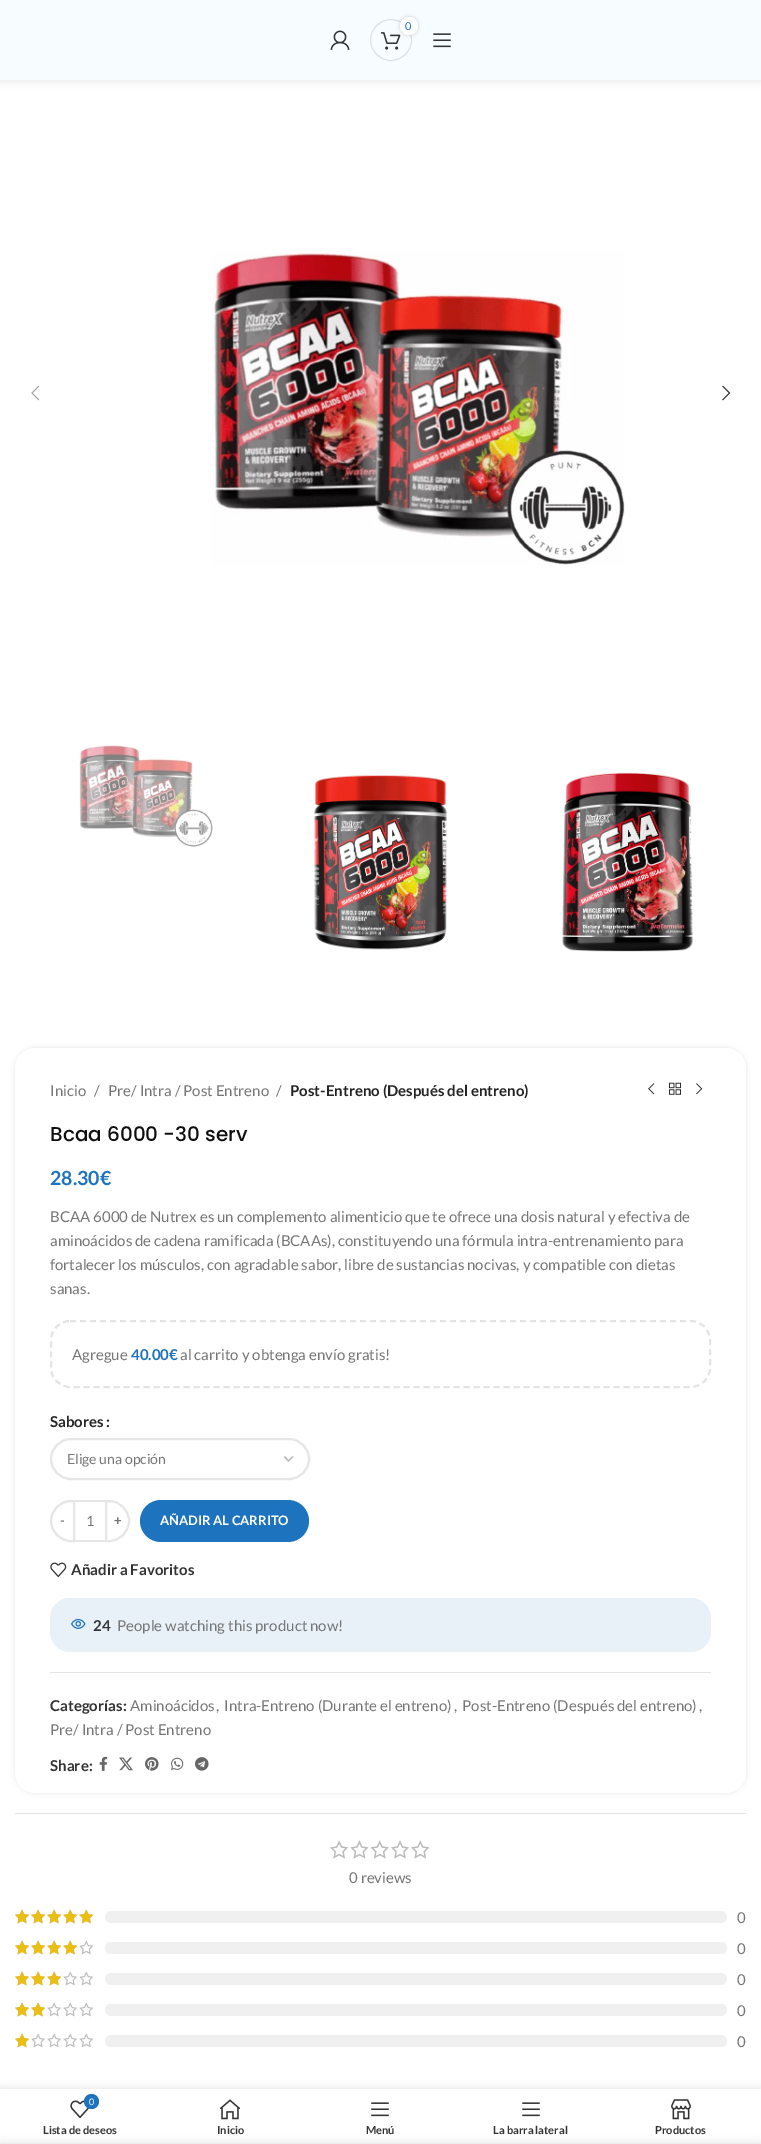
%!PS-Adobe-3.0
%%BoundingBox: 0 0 761 2144
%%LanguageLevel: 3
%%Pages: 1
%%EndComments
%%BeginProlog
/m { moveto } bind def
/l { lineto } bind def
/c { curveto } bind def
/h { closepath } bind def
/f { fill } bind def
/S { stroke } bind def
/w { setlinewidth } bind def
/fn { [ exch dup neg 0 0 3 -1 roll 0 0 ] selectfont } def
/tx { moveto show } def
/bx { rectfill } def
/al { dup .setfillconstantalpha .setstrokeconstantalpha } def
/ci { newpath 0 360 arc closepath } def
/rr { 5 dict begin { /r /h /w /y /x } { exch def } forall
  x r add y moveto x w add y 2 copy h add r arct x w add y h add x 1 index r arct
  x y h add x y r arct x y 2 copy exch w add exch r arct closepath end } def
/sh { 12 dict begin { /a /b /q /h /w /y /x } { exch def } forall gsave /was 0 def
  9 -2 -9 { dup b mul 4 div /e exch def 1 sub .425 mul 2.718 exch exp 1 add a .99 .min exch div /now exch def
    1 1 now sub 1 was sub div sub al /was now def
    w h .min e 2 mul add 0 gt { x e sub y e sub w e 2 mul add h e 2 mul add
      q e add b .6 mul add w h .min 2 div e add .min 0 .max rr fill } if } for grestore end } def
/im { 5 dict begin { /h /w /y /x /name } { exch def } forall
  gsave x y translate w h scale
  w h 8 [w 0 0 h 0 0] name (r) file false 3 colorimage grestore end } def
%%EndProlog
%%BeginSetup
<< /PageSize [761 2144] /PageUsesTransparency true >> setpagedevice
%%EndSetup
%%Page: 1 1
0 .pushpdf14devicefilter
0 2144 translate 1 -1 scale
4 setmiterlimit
1 setgray
0 0 761 2144 bx
0 setgray
0 1 761 80 0 4 0.1 sh
0.965 0.988 1 setrgbcolor
0 0 761 80 bx
0.863 0.882 0.894 setrgbcolor
391 40 20.5 ci S
(image0.raw) 381 32 20 18 im
0 setgray
400 17 18 18 9 2 0.17 sh
1 setgray
409 26 9 ci f
/Lato-Regular 11 fn
0.118 0.451 0.745 setrgbcolor
(0) 405 30 tx
(image1.raw) 330 30 20 20 im
(image2.raw) 433 33 18 15 im
(image3.raw) 212 252 413 313 im
(image4.raw) 31 385 9 16 im
(image5.raw) 722 385 9 16 im
(image6.raw) 79 745 134 102 im
(image7.raw) 314 775 133 175 im
(image8.raw) 562 772 131 180 im
0 setgray
15 1048 731 745 20 2.5 0.1 sh
1 setgray
15 1048 731 745 20 rr f
/Lato-Regular 15 fn
0.463 setgray
(Inicio) 50 1096 tx
(/) 94 1096 tx
(Pre/ Intra / Post Entreno) 108 1096 tx
(/) 276 1096 tx
/Lato-Bold 15 fn
0.141 setgray
(Post-Entreno \(Después del entreno\)) 290 1096 tx
(image9.raw) 648 1083 7 12 im
(image10.raw) 669 1082 12 13 im
(image11.raw) 696 1083 7 12 im
/Poppins-Medium 20 fn
0.059 setgray
(Bcaa 6000 -30 serv) 50 1141 tx
/Lato-Bold 19.5 fn
0.118 0.451 0.745 setrgbcolor
(28.30€) 50 1185 tx
/Lato-Regular 15 fn
0.463 setgray
(BCAA 6000 de Nutrex es un complemento alimenticio que te ofrece una dosis natural y efectiva de) 50 1222 tx
(aminoácidos de cadena ramificada \(BCAAs\), constituyendo una fórmula intra-entrenamiento para) 50 1246 tx
(fortalecer los músculos, con agradable sabor, libre de sustancias nocivas, y compatible con dietas) 50 1270 tx
(sanas.) 50 1294 tx
0.894 setgray
2 w
[6 4] 0 setdash
70 1321 m 691 1321 l 701.5 1321 710 1329.5 710 1340 c 710 1368 l 710 1378.5 701.5 1387 691 1387 c 70 1387 l 59.5 1387 51 1378.5 51 1368 c 51 1340 l 51 1329.5 59.5 1321 70 1321 c h S
0.463 setgray
(Agregue) 72 1360 tx
/Lato-Bold 15 fn
0.118 0.451 0.745 setrgbcolor
(40.00€) 131 1360 tx
/Lato-Regular 15 fn
0.463 setgray
(al carrito y obtenga envío gratis!) 180 1360 tx
/Lato-Bold 15 fn
0.141 setgray
(Sabores) 50 1427 tx
(:) 106 1427 tx
0.733 setgray
1.4 w
[] 0 setdash
284.5 1456.5 m 288.5 1461 l 293 1456.5 l S
0.902 setgray
2 w
51 1439 258 40 20 rr S
/Lato-Regular 14 fn
0.463 setgray
(Elige una opción) 67 1464 tx
0.902 setgray
71 1501 m 74 1501 l 74 1541 l 71 1541 l 60 1541 51 1532 51 1521 c 51 1510 60 1501 71 1501 c h S
/Lato-Bold 13 fn
0.463 setgray
(-) 60 1525 tx
0.902 setgray
75 1500 30 2 bx
75 1540 30 2 bx
/Lato-Regular 14 fn
0.463 setgray
(1) 86 1526 tx
0.902 setgray
106 1501 m 109 1501 l 120 1501 129 1510 129 1521 c 129 1532 120 1541 109 1541 c 106 1541 l h S
/Lato-Bold 13 fn
0.463 setgray
(+) 114 1525 tx
0.118 0.451 0.745 setrgbcolor
140 1500 169 42 21 rr f
1 setgray
(AÑADIR AL CARRITO) 160 1525 tx
(image12.raw) 50 1562 17 15 im
/Lato-Bold 15 fn
0.2 setgray
(Añadir a Favoritos) 71 1575 tx
(image13.raw) 71 1618 15 11 im
0.1 al
0.118 0.451 0.745 setrgbcolor
50 1598 661 54 20 rr f
1 al
0.2 setgray
(24) 93 1631 tx
/Lato-Regular 15 fn
0.463 setgray
(People watching this product now!) 117 1631 tx
0.894 setgray
50 1672 661 1 bx
/Lato-Bold 15 fn
0.2 setgray
(Categorías:) 50 1711 tx
/Lato-Regular 15 fn
0.463 setgray
(Aminoácidos) 130 1711 tx
(,) 216 1711 tx
(Intra-Entreno \(Durante el entreno\)) 224 1711 tx
(,) 454 1711 tx
(Post-Entreno \(Después del entreno\)) 462 1711 tx
(,) 699 1711 tx
(Pre/ Intra / Post Entreno) 50 1735 tx
/Lato-Bold 15 fn
0.2 setgray
(Share:) 50 1771 tx
(image14.raw) 99 1756 9 15 im
(image15.raw) 119 1757 14 14 im
(image16.raw) 145 1757 14 14 im
(image17.raw) 171 1757 13 13 im
(image18.raw) 195 1757 14 14 im
0.894 setgray
15 1813 731 1 bx
(image19.raw) 330 1840 100 19 im
/Lato-Regular 15 fn
0.463 setgray
(0 reviews) 349 1883 tx
(image20.raw) 15 1909 79 15 im
(image21.raw) 15 1909 79 15 im
0.941 setgray
105 1911 622 12 6 rr f
0.463 setgray
(0) 737 1923 tx
(image20.raw) 15 1940 79 15 im
(image22.raw) 15 1940 63 15 im
0.941 setgray
105 1942 622 12 6 rr f
0.463 setgray
(0) 737 1954 tx
(image20.raw) 15 1971 79 15 im
(image23.raw) 15 1971 47 15 im
0.941 setgray
105 1973 622 12 6 rr f
0.463 setgray
(0) 737 1985 tx
(image20.raw) 15 2002 79 15 im
(image24.raw) 15 2002 30 15 im
0.941 setgray
105 2004 622 12 6 rr f
0.463 setgray
(0) 737 2016 tx
(image20.raw) 15 2033 79 15 im
(image25.raw) 15 2033 14 15 im
0.941 setgray
105 2035 622 12 6 rr f
0.463 setgray
(0) 737 2047 tx
0 setgray
0 2089 761 55 0 4.5 0.12 sh
1 setgray
0 2089 761 55 bx
(image26.raw) 70 2100 20 18 im
0.118 0.451 0.745 setrgbcolor
91.5 2101.5 7.5 ci f
/Lato-Regular 9 fn
1 setgray
(0) 89 2105 tx
/Lato-Bold 11 fn
0.2 setgray
(Lista de deseos) 43 2134 tx
(image27.raw) 220 2099 20 21 im
(Inicio) 217 2134 tx
(image28.raw) 371 2102 18 15 im
(Menú) 366 2134 tx
(image28.raw) 522 2102 18 15 im
(La barra lateral) 493 2134 tx
(image29.raw) 671 2099 20 21 im
(Productos) 655 2134 tx
0 setgray
0 2144 761 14 0 4.5 0.14 sh
.poppdf14devicefilter showpage
%%EOF
